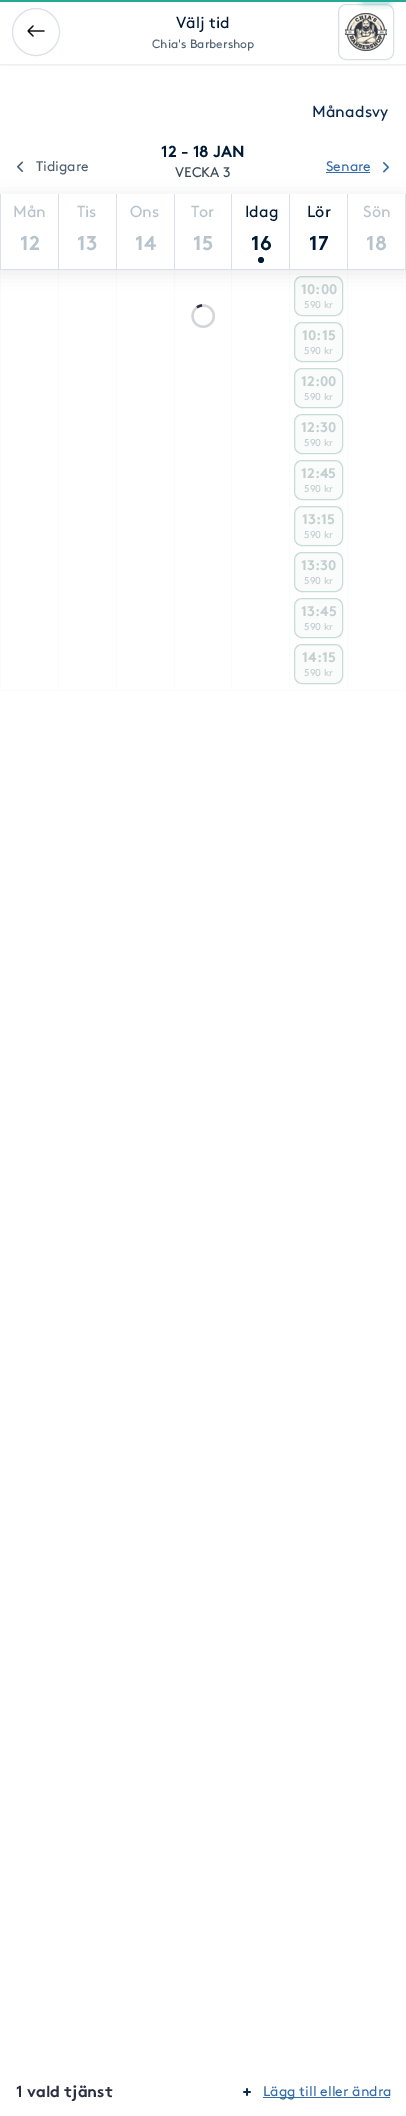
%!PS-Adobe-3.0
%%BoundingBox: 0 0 406 2116
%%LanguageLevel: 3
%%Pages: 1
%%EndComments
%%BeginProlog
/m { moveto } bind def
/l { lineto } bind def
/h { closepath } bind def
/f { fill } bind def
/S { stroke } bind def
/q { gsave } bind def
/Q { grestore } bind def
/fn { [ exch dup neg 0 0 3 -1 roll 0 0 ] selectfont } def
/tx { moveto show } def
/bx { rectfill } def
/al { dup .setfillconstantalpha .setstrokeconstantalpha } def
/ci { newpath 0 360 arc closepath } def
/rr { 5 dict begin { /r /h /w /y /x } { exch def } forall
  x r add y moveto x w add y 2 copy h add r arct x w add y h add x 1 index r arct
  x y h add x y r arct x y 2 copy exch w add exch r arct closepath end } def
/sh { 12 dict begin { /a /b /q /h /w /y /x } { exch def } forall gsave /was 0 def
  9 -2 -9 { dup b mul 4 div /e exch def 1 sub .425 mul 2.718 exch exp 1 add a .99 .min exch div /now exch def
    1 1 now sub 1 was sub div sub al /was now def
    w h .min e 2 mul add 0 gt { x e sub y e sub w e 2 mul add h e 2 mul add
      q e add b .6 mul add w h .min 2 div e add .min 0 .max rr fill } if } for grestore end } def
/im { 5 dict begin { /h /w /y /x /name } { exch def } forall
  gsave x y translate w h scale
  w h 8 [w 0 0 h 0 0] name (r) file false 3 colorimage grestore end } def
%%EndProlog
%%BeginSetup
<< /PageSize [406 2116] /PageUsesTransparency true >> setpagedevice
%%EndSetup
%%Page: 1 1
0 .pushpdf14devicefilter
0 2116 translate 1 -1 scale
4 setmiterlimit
1 setgray
0 0 406 2116 bx
q
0 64 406 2 rectclip
0 0.102 0.2 setrgbcolor
0 1 406 64 0 1.5 0.1 sh
Q
0.137 0.663 0.58 setrgbcolor
0 0 406 2 bx
0.851 0.878 0.906 setrgbcolor
338.5 4.5 55 55 7.5 rr S
(image1.raw) 345 13 42 38 im
0.137 0.663 0.58 setrgbcolor
366 -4 20 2 0 5 1 sh
366 -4 20 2 0 5 1 sh
0.851 0.878 0.906 setrgbcolor
36 32 23.5 ci S
(image0.raw) 27 25 18 12 im
/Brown-Regular 16 fn
0 0.102 0.2 setrgbcolor
(Välj tid) 176 28 tx
/Brown-Regular 12 fn
0.314 0.38 0.447 setrgbcolor
(Chia's Barbershop) 152 48 tx
/Brown-Regular 16 fn
0.035 0.165 0.306 setrgbcolor
(Månadsvy) 312 117 tx
/Brown-Bold 16 fn
0 0.102 0.2 setrgbcolor
(12 - 18 JAN) 161 157 tx
/Brown-Regular 14 fn
0.231 0.29 0.345 setrgbcolor
(VECKA 3) 175 177 tx
0.976 0.984 0.988 setrgbcolor
0 690 347 1 bx
0 270 1 421 bx
58 270 1 421 bx
116 270 1 421 bx
174 270 1 421 bx
231 270 1 421 bx
289 270 1 421 bx
0.976 0.988 0.984 setrgbcolor
294.5 276.5 48 39 7.5 rr q f Q
0.773 0.863 0.843 setrgbcolor
S
0.976 0.984 0.988 setrgbcolor
405 270 1 421 bx
347 690 59 1 bx
347 270 1 421 bx
q
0 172 m 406 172 l 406 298 l 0 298 l h 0 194 m 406 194 l 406 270 l 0 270 l h eoclip newpath
0 setgray
0 197 406 76 0 8 0.08 sh
Q
(image2.raw) 17 161 6 11 im
0.314 0.38 0.447 setrgbcolor
(Tidigare) 36 171 tx
0.2 0.424 0.659 setrgbcolor
(Senare) 326 171 tx
326 172 44 1 bx
(image3.raw) 383 162 6 11 im
0.851 0.878 0.906 setrgbcolor
0 269 347 1 bx
0 194 1 76 bx
/Brown-Regular 16 fn
0.722 0.765 0.8 setrgbcolor
(Mån) 13 217 tx
/Brown-Bold 20 fn
(12) 20 250 tx
0.851 0.878 0.906 setrgbcolor
58 194 1 76 bx
/Brown-Regular 16 fn
0.722 0.765 0.8 setrgbcolor
(Tis) 77 217 tx
/Brown-Bold 20 fn
(13) 77 250 tx
0.851 0.878 0.906 setrgbcolor
116 194 1 76 bx
/Brown-Regular 16 fn
0.722 0.765 0.8 setrgbcolor
(Ons) 130 217 tx
/Brown-Bold 20 fn
(14) 135 250 tx
0.851 0.878 0.906 setrgbcolor
174 194 1 76 bx
/Brown-Regular 16 fn
0.722 0.765 0.8 setrgbcolor
(Tor) 191 217 tx
/Brown-Bold 20 fn
(15) 193 250 tx
0.851 0.878 0.906 setrgbcolor
231 194 1 76 bx
/Brown-Regular 16 fn
0 0.102 0.2 setrgbcolor
(Idag) 245 217 tx
/Brown-Bold 20 fn
(16) 251 250 tx
261 260 3 ci f
0.851 0.878 0.906 setrgbcolor
289 194 1 76 bx
/Brown-Regular 16 fn
0 0.102 0.2 setrgbcolor
(Lör) 307 217 tx
/Brown-Bold 20 fn
(17) 309 250 tx
0.851 0.878 0.906 setrgbcolor
405 194 1 76 bx
347 269 59 1 bx
347 194 1 76 bx
/Brown-Regular 16 fn
0.722 0.765 0.8 setrgbcolor
(Sön) 363 217 tx
/Brown-Bold 20 fn
(18) 366 250 tx
(image4.raw) 191 304 24 24 im
/Brown-Bold 14 fn
0.765 0.812 0.804 setrgbcolor
(10:00) 301 294 tx
/Brown-Regular 10 fn
(590 kr) 304 308 tx
0.976 0.988 0.984 setrgbcolor
294.5 322.5 48 39 7.5 rr q f Q
0.773 0.863 0.843 setrgbcolor
S
/Brown-Bold 14 fn
0.765 0.812 0.804 setrgbcolor
(10:15) 302 340 tx
/Brown-Regular 10 fn
(590 kr) 304 354 tx
0.976 0.988 0.984 setrgbcolor
294.5 368.5 48 39 7.5 rr q f Q
0.773 0.863 0.843 setrgbcolor
S
/Brown-Bold 14 fn
0.765 0.812 0.804 setrgbcolor
(12:00) 301 386 tx
/Brown-Regular 10 fn
(590 kr) 304 400 tx
0.976 0.988 0.984 setrgbcolor
294.5 414.5 48 39 7.5 rr q f Q
0.773 0.863 0.843 setrgbcolor
S
/Brown-Bold 14 fn
0.765 0.812 0.804 setrgbcolor
(12:30) 301 432 tx
/Brown-Regular 10 fn
(590 kr) 304 446 tx
0.976 0.988 0.984 setrgbcolor
294.5 460.5 48 39 7.5 rr q f Q
0.773 0.863 0.843 setrgbcolor
S
/Brown-Bold 14 fn
0.765 0.812 0.804 setrgbcolor
(12:45) 301 478 tx
/Brown-Regular 10 fn
(590 kr) 304 492 tx
0.976 0.988 0.984 setrgbcolor
294.5 506.5 48 39 7.5 rr q f Q
0.773 0.863 0.843 setrgbcolor
S
/Brown-Bold 14 fn
0.765 0.812 0.804 setrgbcolor
(13:15) 302 524 tx
/Brown-Regular 10 fn
(590 kr) 304 538 tx
0.976 0.988 0.984 setrgbcolor
294.5 552.5 48 39 7.5 rr q f Q
0.773 0.863 0.843 setrgbcolor
S
/Brown-Bold 14 fn
0.765 0.812 0.804 setrgbcolor
(13:30) 301 570 tx
/Brown-Regular 10 fn
(590 kr) 304 584 tx
0.976 0.988 0.984 setrgbcolor
294.5 598.5 48 39 7.5 rr q f Q
0.773 0.863 0.843 setrgbcolor
S
/Brown-Bold 14 fn
0.765 0.812 0.804 setrgbcolor
(13:45) 301 616 tx
/Brown-Regular 10 fn
(590 kr) 304 630 tx
0.976 0.988 0.984 setrgbcolor
294.5 644.5 48 39 7.5 rr q f Q
0.773 0.863 0.843 setrgbcolor
S
/Brown-Bold 14 fn
0.765 0.812 0.804 setrgbcolor
(14:15) 302 662 tx
/Brown-Regular 10 fn
(590 kr) 304 676 tx
/Brown-Bold 16 fn
0.165 0.18 0.263 setrgbcolor
(1 vald tjänst) 16 2097 tx
(image5.raw) 243 2088 8 8 im
0.2 0.424 0.659 setrgbcolor
263 2097 127 1 bx
/Brown-Regular 14 fn
(Lägg till eller ändra) 263 2096 tx
.poppdf14devicefilter showpage
%%EOF
